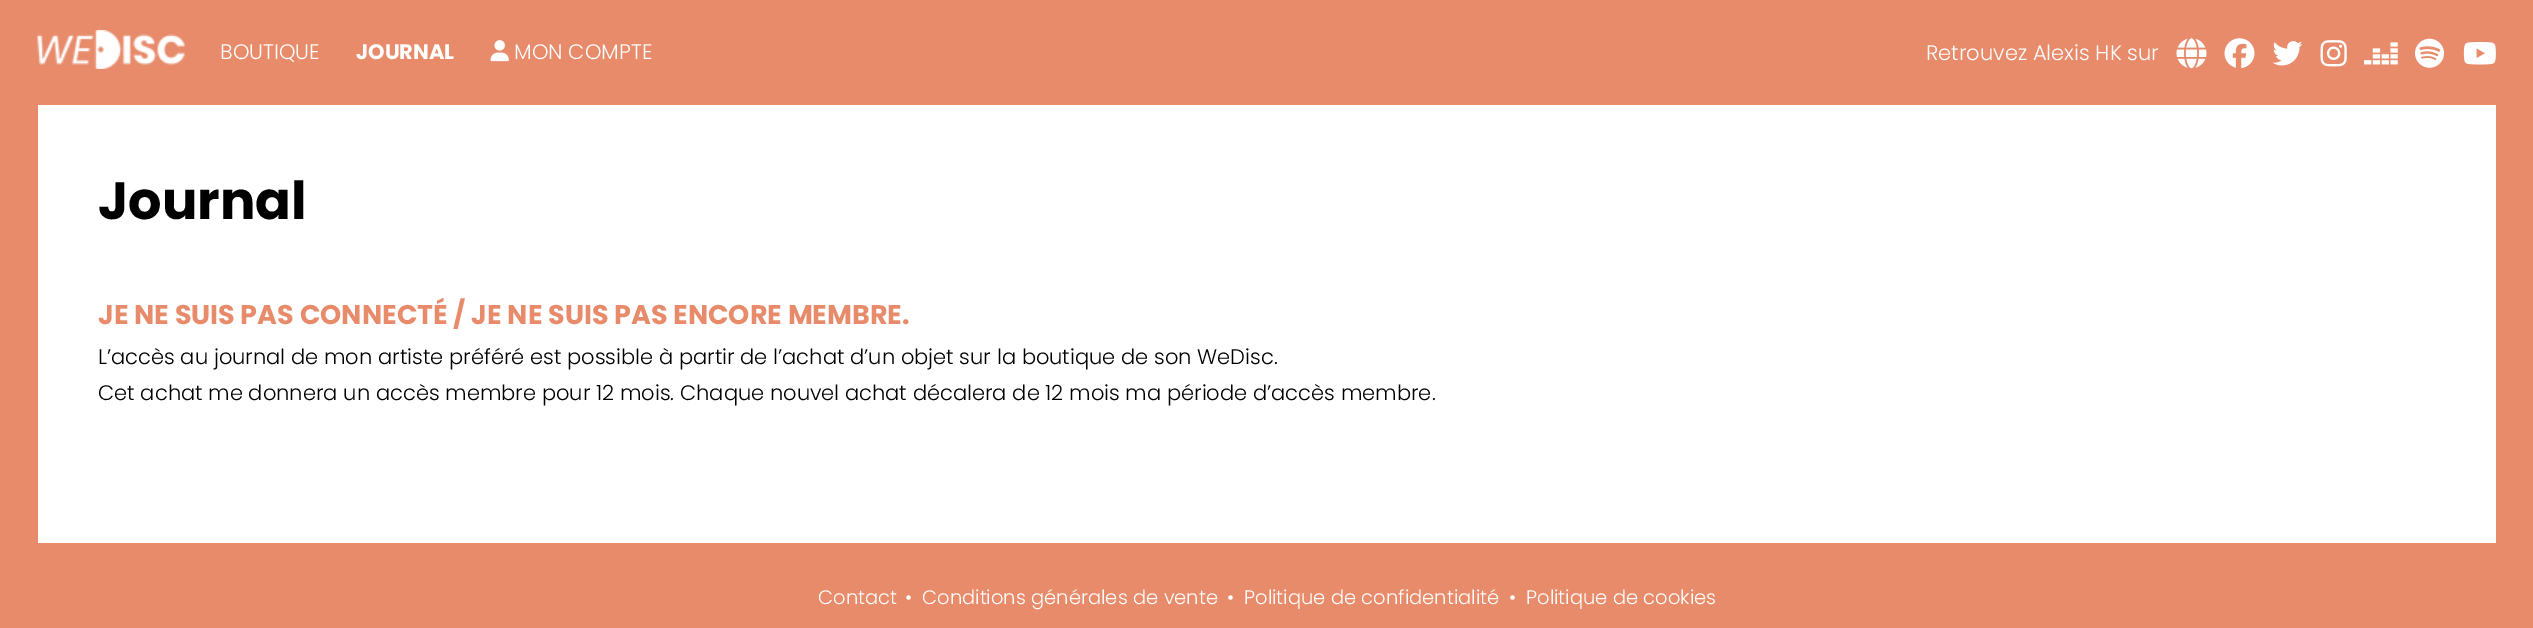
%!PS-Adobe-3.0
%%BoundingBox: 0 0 2533 628
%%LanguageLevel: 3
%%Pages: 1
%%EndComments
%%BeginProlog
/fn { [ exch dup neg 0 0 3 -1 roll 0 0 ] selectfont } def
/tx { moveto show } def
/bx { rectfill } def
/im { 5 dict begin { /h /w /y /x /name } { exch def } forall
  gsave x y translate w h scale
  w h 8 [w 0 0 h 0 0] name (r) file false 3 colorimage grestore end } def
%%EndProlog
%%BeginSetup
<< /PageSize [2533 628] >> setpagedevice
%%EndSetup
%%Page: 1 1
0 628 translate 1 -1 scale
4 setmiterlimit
1 setgray
0 0 2533 628 bx
0.906 0.545 0.42 setrgbcolor
2496 0 37 628 bx
0 0 38 628 bx
38 0 2458 105 bx
(image0.raw) 37 30 148 39 im
/Poppins-Light 21 fn
1 setgray
(BOUTIQUE) 220 59 tx
/Poppins-Bold 21 fn
(JOURNAL) 356 59 tx
(image1.raw) 490 40 19 22 im
/Poppins-Light 21 fn
(MON COMPTE) 514 59 tx
(Retrouvez Alexis HK sur) 1926 60 tx
(image2.raw) 2176 38 31 31 im
(image3.raw) 2224 38 31 31 im
(image4.raw) 2272 41 31 25 im
(image5.raw) 2320 40 27 27 im
(image6.raw) 2364 42 34 23 im
(image7.raw) 2415 38 30 30 im
(image8.raw) 2463 42 33 23 im
/Poppins-Bold 52.5 fn
0 setgray
(Journal) 98 219 tx
/Poppins-Bold 27 fn
0.906 0.545 0.42 setrgbcolor
(JE NE SUIS PAS CONNECTÉ / JE NE SUIS PAS ENCORE MEMBRE.) 98 324 tx
/Poppins-Light 21 fn
0 setgray
(L’accès au journal de mon artiste préféré est possible à partir de l’achat d’un objet sur la boutique de son WeDisc.) 98 364 tx
(Cet achat me donnera un accès membre pour 12 mois. Chaque nouvel achat décalera de 12 mois ma période d’accès membre.) 98 400 tx
0.906 0.545 0.42 setrgbcolor
38 543 2458 85 bx
/Poppins-Light 19.5 fn
1 setgray
(Contact) 818 604 tx
(•) 905 604 tx
(Conditions générales de vente) 922 604 tx
(•) 1227 604 tx
(Politique de confidentialité) 1244 604 tx
(•) 1509 604 tx
(Politique de cookies) 1526 604 tx
showpage
%%EOF
